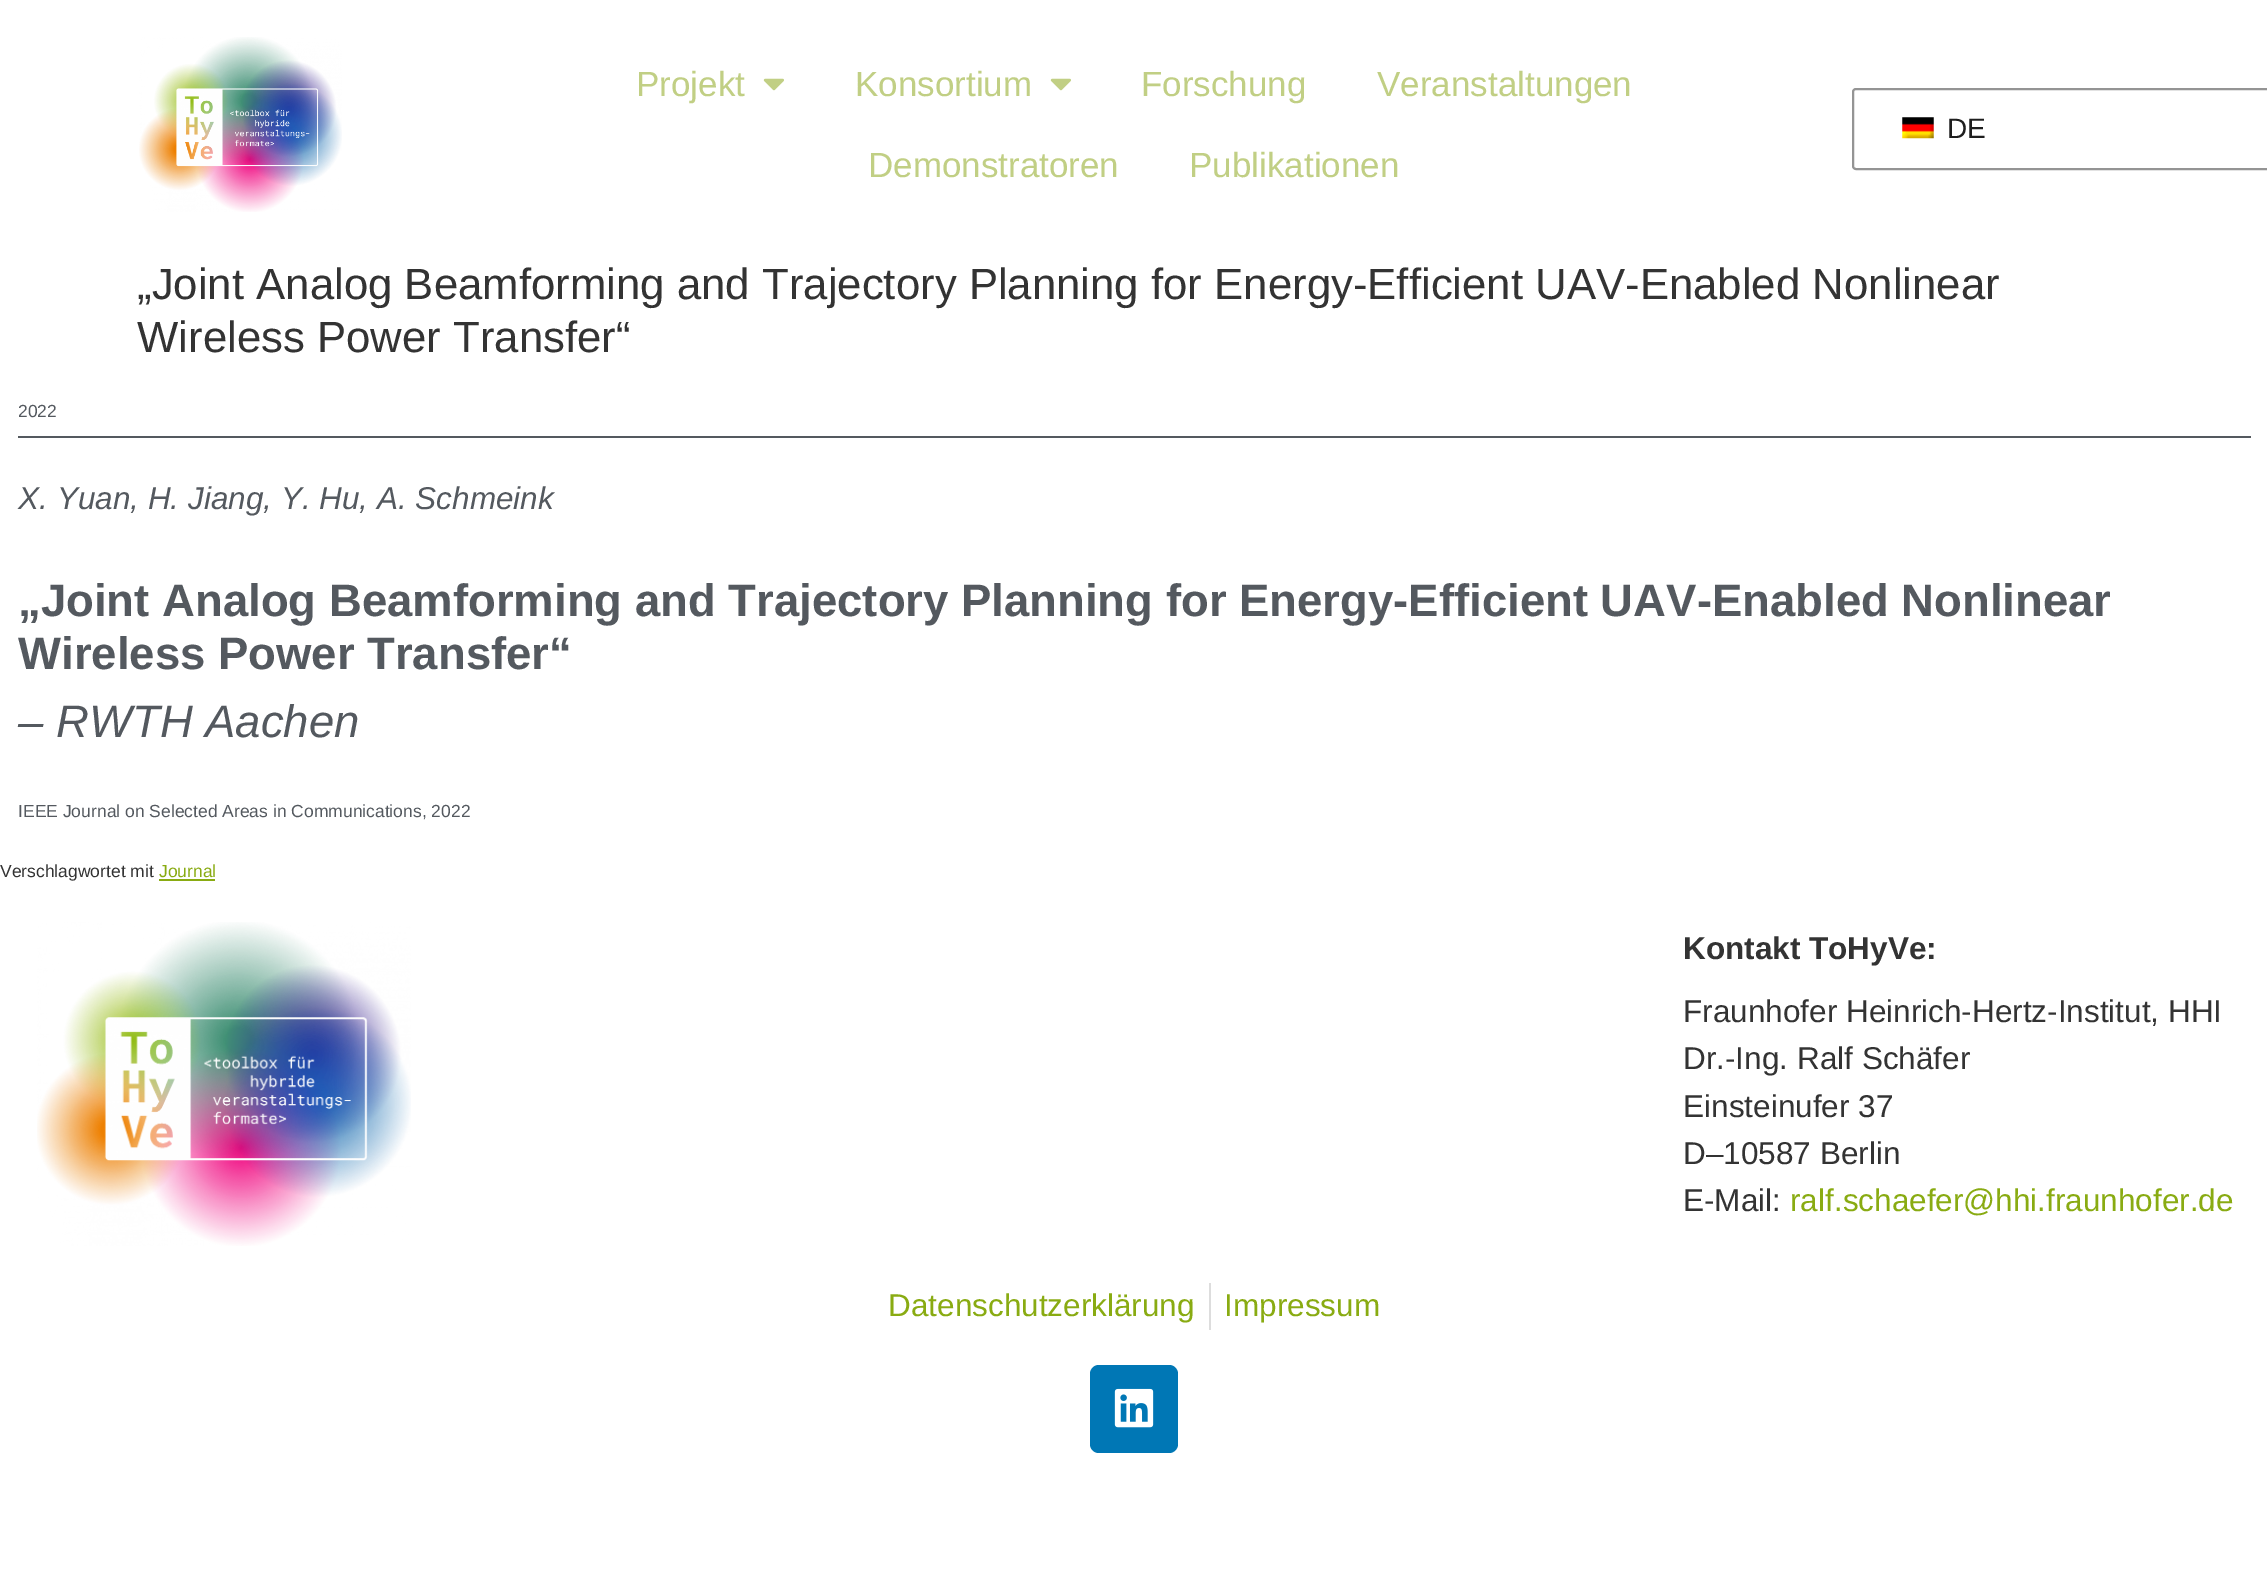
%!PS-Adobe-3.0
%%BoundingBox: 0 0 2267 1589
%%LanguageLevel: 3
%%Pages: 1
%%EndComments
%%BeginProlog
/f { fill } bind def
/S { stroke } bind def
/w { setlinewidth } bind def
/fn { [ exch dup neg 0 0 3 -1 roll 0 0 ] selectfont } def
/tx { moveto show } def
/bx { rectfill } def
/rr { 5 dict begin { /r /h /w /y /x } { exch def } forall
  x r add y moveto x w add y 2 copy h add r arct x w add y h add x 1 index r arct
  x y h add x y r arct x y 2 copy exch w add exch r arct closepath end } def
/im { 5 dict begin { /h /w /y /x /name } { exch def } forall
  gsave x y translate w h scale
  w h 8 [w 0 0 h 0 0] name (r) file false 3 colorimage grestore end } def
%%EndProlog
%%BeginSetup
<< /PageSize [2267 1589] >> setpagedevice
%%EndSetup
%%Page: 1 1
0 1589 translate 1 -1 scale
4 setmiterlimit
1 setgray
0 0 2267 1589 bx
(image0.raw) 139 37 203 175 im
/LiberationSans-Regular 35 fn
0.757 0.812 0.518 setrgbcolor
(Projekt) 636 96 tx
(image1.raw) 763 78 21 13 im
(Konsortium) 855 96 tx
(image1.raw) 1050 78 21 13 im
(Forschung) 1141 96 tx
(Veranstaltungen) 1377 96 tx
(Demonstratoren) 868 177 tx
(Publikationen) 1189 177 tx
0.58 setgray
2 w
1853 89 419 80 3 rr S
(image2.raw) 1902 117 32 22 im
/LiberationSans-Regular 28 fn
0.118 setgray
(DE) 1947 138 tx
/LiberationSans-Regular 43.75 fn
0.2 setgray
(„Joint Analog Beamforming and Trajectory Planning for Energy-Efficient UAV-Enabled Nonlinear) 137 299 tx
(Wireless Power Transfer“) 137 352 tx
/LiberationSans-Regular 17.5 fn
0.329 0.349 0.373 setrgbcolor
(2022) 18 417 tx
18 436 2233 2 bx
/LiberationSans-Italic 31.5 fn
(X. Yuan, H. Jiang, Y. Hu, A. Schmeink) 18 509 tx
/LiberationSans-Bold 45.5 fn
(„Joint Analog Beamforming and Trajectory Planning for Energy-Efficient UAV-Enabled Nonlinear) 18 616 tx
(Wireless Power Transfer“) 18 669 tx
/LiberationSans-Italic 45.5 fn
(– RWTH Aachen) 18 737 tx
/LiberationSans-Regular 17.5 fn
(IEEE Journal on Selected Areas in Communications, 2022) 18 817 tx
0.2 setgray
(Verschlagwortet mit) 0 877 tx
0.537 0.671 0.071 setrgbcolor
(Journal) 159 877 tx
159 879 56 2 bx
(image3.raw) 37 922 374 324 im
/LiberationSans-Bold 31.5 fn
0.2 setgray
(Kontakt ToHyVe:) 1683 959 tx
/LiberationSans-Regular 31.5 fn
(Fraunhofer Heinrich-Hertz-Institut, HHI) 1683 1022 tx
(Dr.-Ing. Ralf Schäfer) 1683 1069 tx
(Einsteinufer 37) 1683 1117 tx
(D–10587 Berlin) 1683 1164 tx
(E-Mail:) 1683 1211 tx
0.537 0.671 0.071 setrgbcolor
(ralf.schaefer@hhi.fraunhofer.de) 1790 1211 tx
(Datenschutzerklärung) 888 1316 tx
0.867 setgray
1209 1283 2 47 bx
0.537 0.671 0.071 setrgbcolor
(Impressum) 1224 1316 tx
0 0.467 0.71 setrgbcolor
1090 1365 88 88 9 rr f
(image4.raw) 1114 1388 40 40 im
showpage
%%EOF
